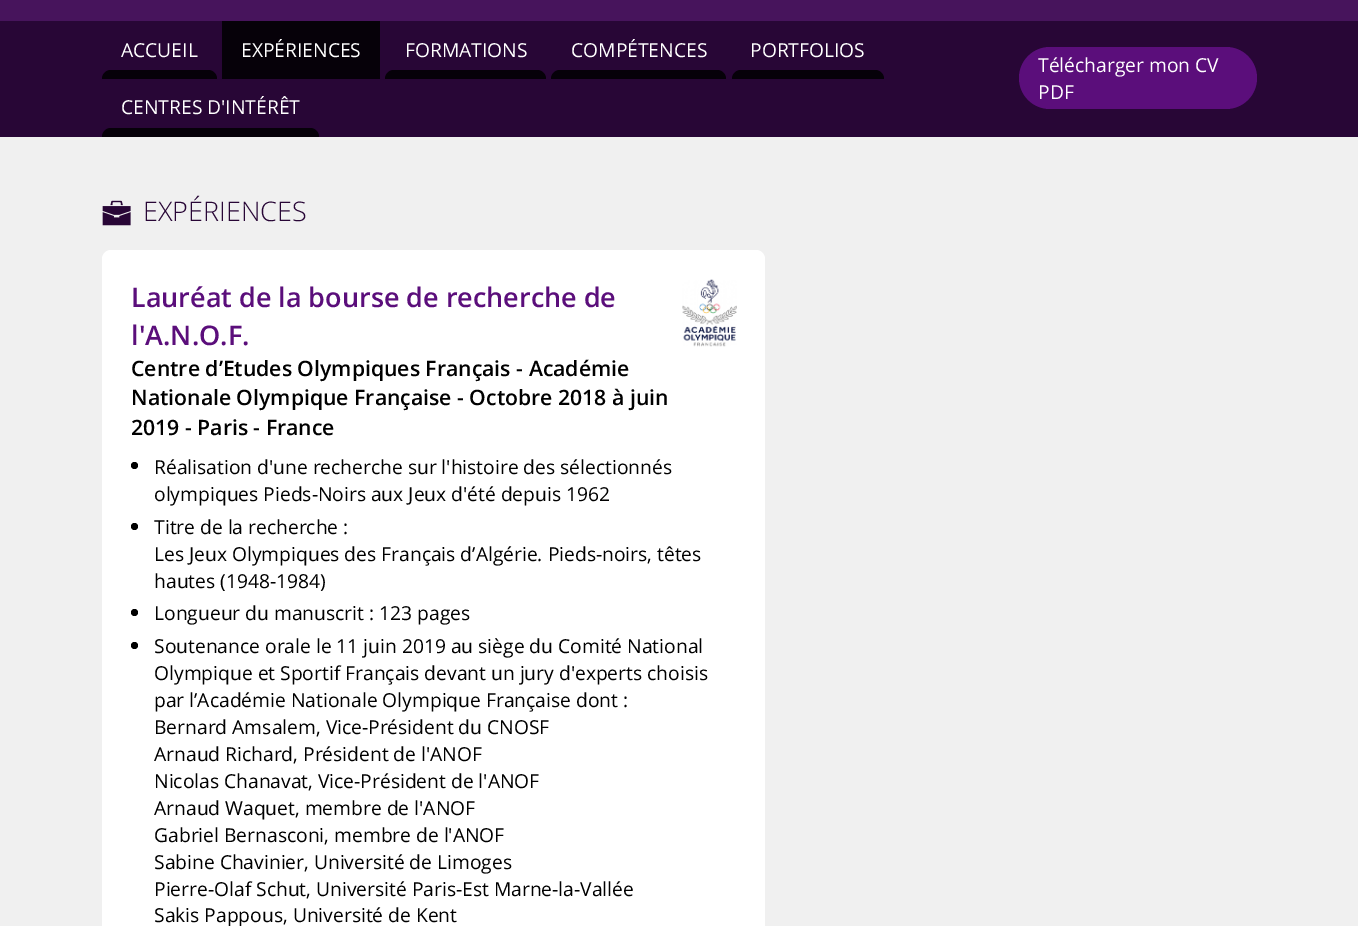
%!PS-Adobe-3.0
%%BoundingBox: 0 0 1358 926
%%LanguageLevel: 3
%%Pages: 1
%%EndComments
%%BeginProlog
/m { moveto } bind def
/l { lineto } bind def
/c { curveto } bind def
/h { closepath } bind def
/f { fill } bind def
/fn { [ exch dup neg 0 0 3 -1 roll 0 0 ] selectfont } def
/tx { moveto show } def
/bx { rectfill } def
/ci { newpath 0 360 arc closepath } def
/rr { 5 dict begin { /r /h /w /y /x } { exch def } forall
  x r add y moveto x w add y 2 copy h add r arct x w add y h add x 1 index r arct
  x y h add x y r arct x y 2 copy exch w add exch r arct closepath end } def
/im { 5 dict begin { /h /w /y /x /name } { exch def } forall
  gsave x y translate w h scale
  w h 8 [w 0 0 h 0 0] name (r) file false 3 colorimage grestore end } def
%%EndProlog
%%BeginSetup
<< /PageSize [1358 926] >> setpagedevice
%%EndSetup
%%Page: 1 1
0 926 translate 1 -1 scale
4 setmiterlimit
0.941 setgray
0 0 1358 926 bx
0.278 0.078 0.361 setrgbcolor
0 0 1358 21 bx
0.157 0.024 0.212 setrgbcolor
0 21 1358 116 bx
/OpenSans-Regular 19.25 fn
1 setgray
(ACCUEIL) 121 57 tx
0.024 0.004 0.035 setrgbcolor
111 70 m 208 70 l 213 70 217 74 217 79 c 102 79 l 102 74 106 70 111 70 c h f
222 21 158 58 bx
1 setgray
(EXPÉRIENCES) 241 57 tx
(FORMATIONS) 405 57 tx
0.024 0.004 0.035 setrgbcolor
394 70 m 537 70 l 542 70 546 74 546 79 c 385 79 l 385 74 389 70 394 70 c h f
1 setgray
(COMPÉTENCES) 571 57 tx
0.024 0.004 0.035 setrgbcolor
560 70 m 717 70 l 722 70 726 74 726 79 c 551 79 l 551 74 555 70 560 70 c h f
1 setgray
(PORTFOLIOS) 750 57 tx
0.024 0.004 0.035 setrgbcolor
741 70 m 875 70 l 880 70 884 74 884 79 c 732 79 l 732 74 736 70 741 70 c h f
1 setgray
(CENTRES D'INTÉRÊT) 121 114 tx
0.024 0.004 0.035 setrgbcolor
111 128 m 310 128 l 315 128 319 132 319 137 c 102 137 l 102 132 106 128 111 128 c h f
0.357 0.055 0.482 setrgbcolor
1019 47 238 62 31 rr f
1 setgray
(Télécharger mon CV) 1038 72 tx
(PDF) 1038 99 tx
(image0.raw) 102 200 29 26 im
/OpenSans-Light 27 fn
0.157 0.024 0.212 setrgbcolor
(EXPÉRIENCES) 143 221 tx
1 setgray
102 250 663 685 9 rr f
/OpenSans-SemiBold 27 fn
0.357 0.055 0.482 setrgbcolor
(Lauréat de la bourse de recherche de) 131 307 tx
(l'A.N.O.F.) 131 345 tx
/OpenSans-SemiBold 21.2 fn
0 setgray
(Centre d’Etudes Olympiques Français - Académie) 131 376 tx
(Nationale Olympique Française - Octobre 2018 à juin) 131 405 tx
(2019 - Paris - France) 131 435 tx
(image1.raw) 682 279 55 68 im
134.5 465.5 3.5 ci f
/OpenSans-Regular 19.25 fn
(Réalisation d'une recherche sur l'histoire des sélectionnés) 154 474 tx
(olympiques Pieds-Noirs aux Jeux d'été depuis 1962) 154 501 tx
134.5 526.5 3.5 ci f
(Titre de la recherche :) 154 534 tx
(Les Jeux Olympiques des Français d’Algérie. Pieds-noirs, têtes) 154 561 tx
(hautes \(1948-1984\)) 154 588 tx
134.5 612.5 3.5 ci f
(Longueur du manuscrit : 123 pages) 154 620 tx
134.5 645.5 3.5 ci f
(Soutenance orale le 11 juin 2019 au siège du Comité National) 154 653 tx
(Olympique et Sportif Français devant un jury d'experts choisis) 154 680 tx
(par l’Académie Nationale Olympique Française dont :) 154 707 tx
(Bernard Amsalem, Vice-Président du CNOSF) 154 734 tx
(Arnaud Richard, Président de l'ANOF) 154 761 tx
(Nicolas Chanavat, Vice-Président de l'ANOF) 154 788 tx
(Arnaud Waquet, membre de l'ANOF) 154 815 tx
(Gabriel Bernasconi, membre de l'ANOF) 154 842 tx
(Sabine Chavinier, Université de Limoges) 154 869 tx
(Pierre-Olaf Schut, Université Paris-Est Marne-la-Vallée) 154 896 tx
(Sakis Pappous, Université de Kent) 154 922 tx
showpage
%%EOF
